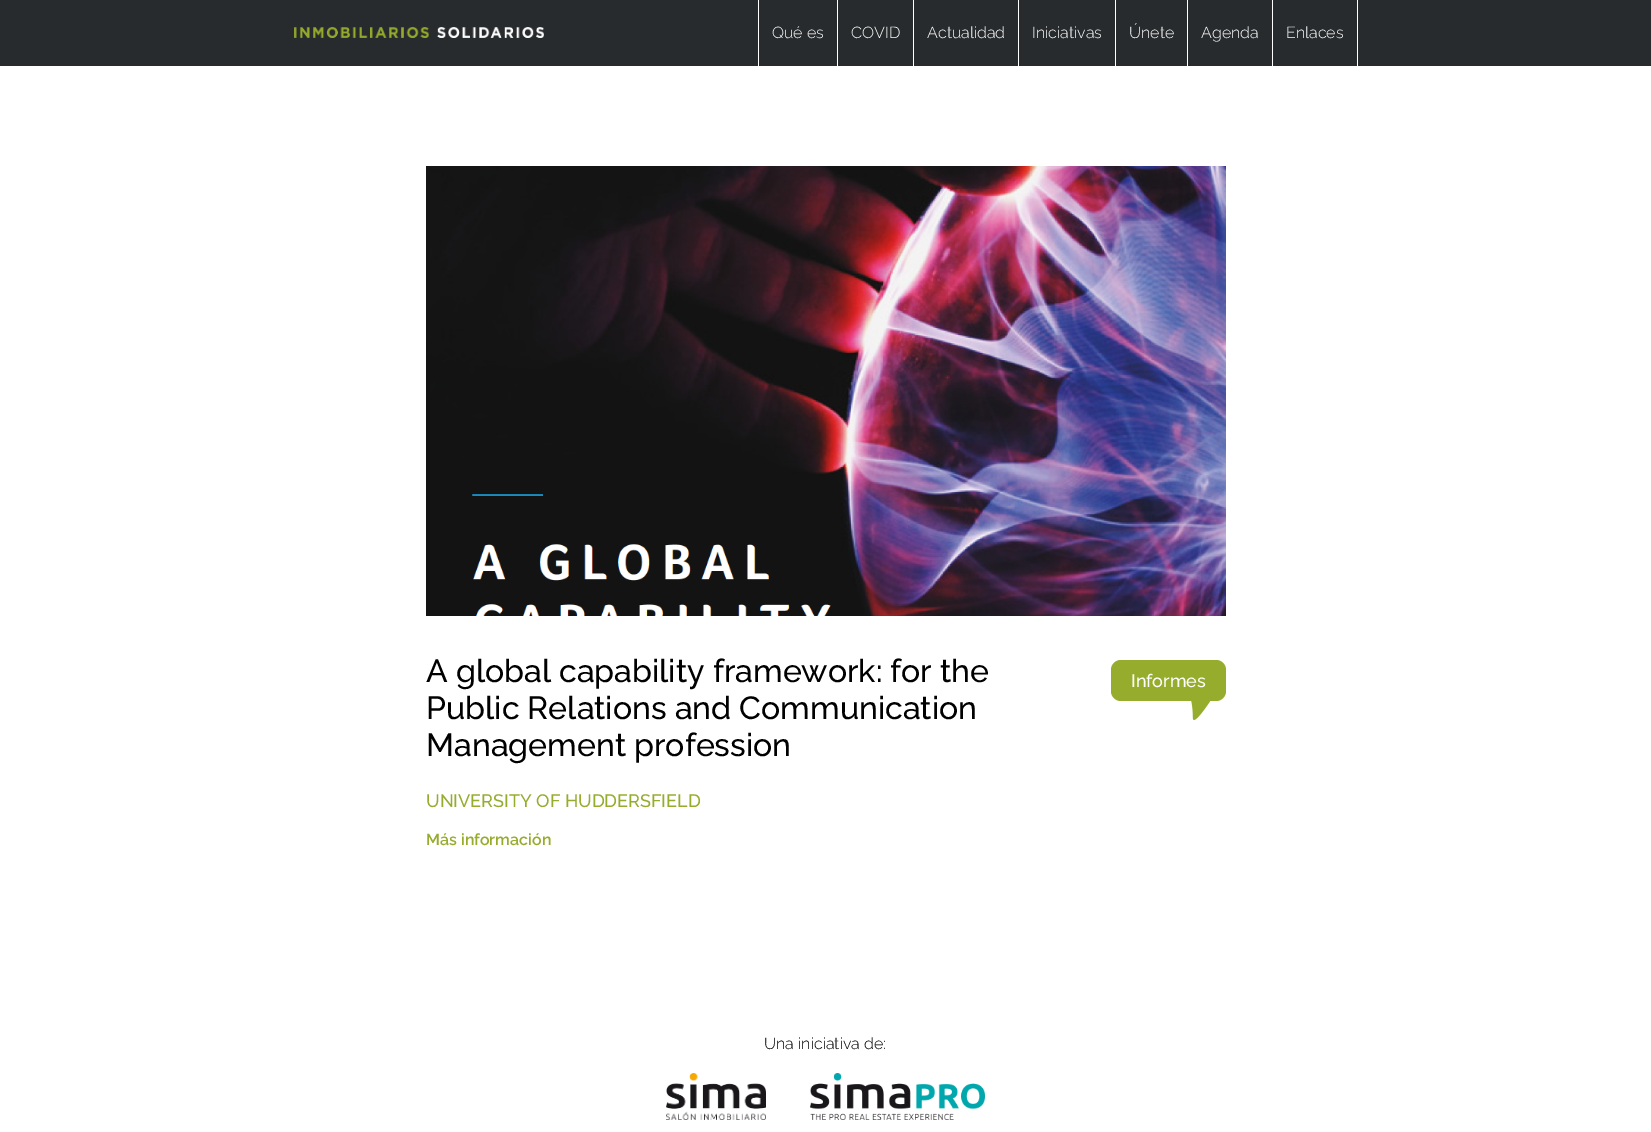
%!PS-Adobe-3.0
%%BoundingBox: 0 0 1651 1132
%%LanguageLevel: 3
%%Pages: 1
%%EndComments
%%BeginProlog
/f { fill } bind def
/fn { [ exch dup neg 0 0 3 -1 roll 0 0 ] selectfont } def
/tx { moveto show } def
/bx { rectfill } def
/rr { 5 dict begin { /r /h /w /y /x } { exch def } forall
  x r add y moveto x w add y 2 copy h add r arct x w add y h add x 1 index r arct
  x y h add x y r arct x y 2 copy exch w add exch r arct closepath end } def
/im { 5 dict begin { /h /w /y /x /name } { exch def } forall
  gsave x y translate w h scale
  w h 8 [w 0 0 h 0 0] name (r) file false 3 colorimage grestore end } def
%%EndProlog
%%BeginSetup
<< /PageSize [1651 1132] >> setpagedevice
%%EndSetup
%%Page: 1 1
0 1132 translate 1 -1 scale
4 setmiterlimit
1 setgray
0 0 1651 1132 bx
0.157 0.169 0.176 setrgbcolor
0 0 1651 66 bx
(image0.raw) 294 27 250 11 im
1 setgray
758 0 1 66 bx
/Raleway-Light 16 fn
(Qué es) 772 38 tx
837 0 1 66 bx
(COVID) 851 38 tx
913 0 1 66 bx
(Actualidad) 927 38 tx
1018 0 1 66 bx
(Iniciativas) 1032 38 tx
1115 0 1 66 bx
(Únete) 1129 38 tx
1187 0 1 66 bx
(Agenda) 1201 38 tx
1357 0 1 66 bx
1272 0 1 66 bx
(Enlaces) 1286 38 tx
(image1.raw) 426 166 800 450 im
/Raleway-Medium 32 fn
0 setgray
(A global capability framework: for the) 426 682 tx
(Public Relations and Communication) 426 719 tx
(Management profession) 426 756 tx
(image2.raw) 1191 701 20 19 im
0.588 0.675 0.176 setrgbcolor
1111 660 115 41 10 rr f
/Raleway-Medium 18 fn
1 setgray
(Informes) 1131 687 tx
0.588 0.675 0.176 setrgbcolor
(UNIVERSITY OF HUDDERSFIELD) 426 807 tx
/Raleway-SemiBold 16 fn
(Más información) 426 845 tx
/Raleway-Light 16 fn
0 setgray
(Una iniciativa de:) 764 1049 tx
(image3.raw) 666 1073 100 47 im
(image4.raw) 810 1073 175 47 im
showpage
%%EOF
